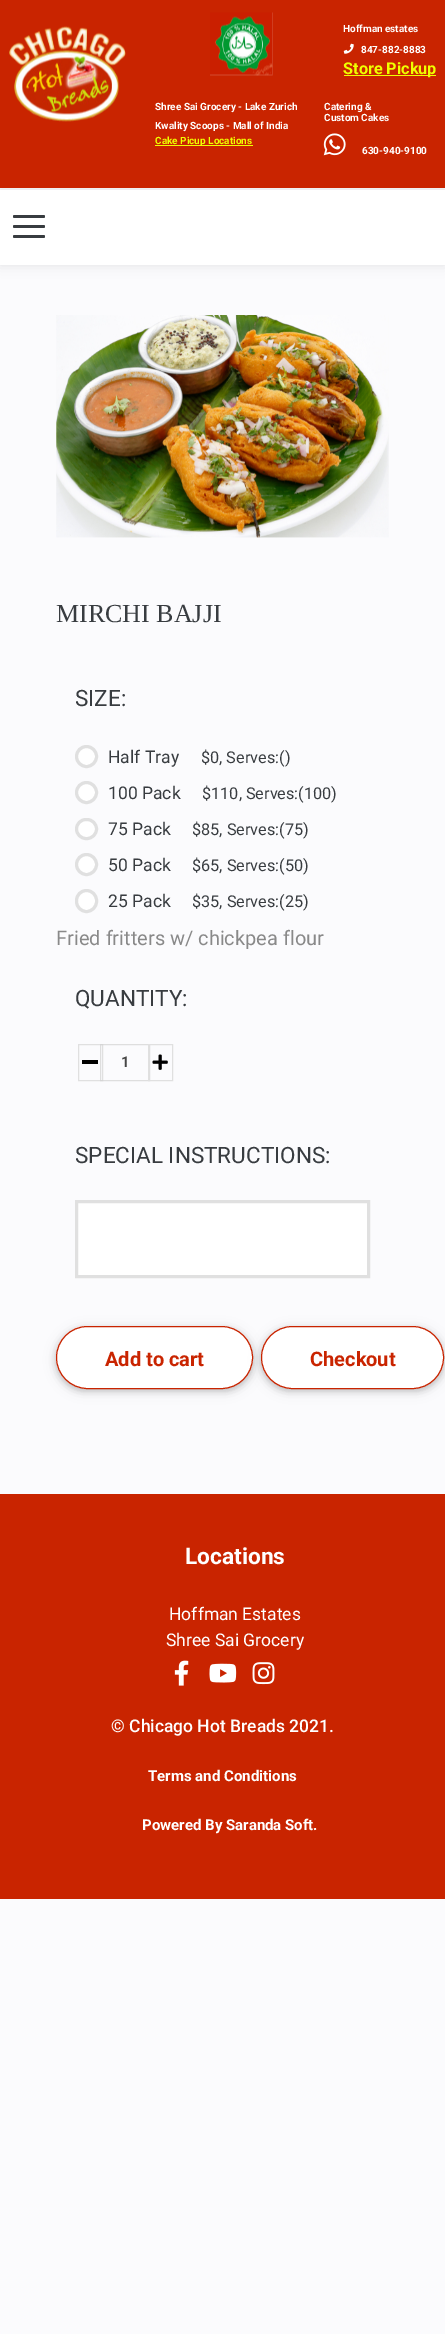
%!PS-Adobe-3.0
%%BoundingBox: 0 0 445 2334
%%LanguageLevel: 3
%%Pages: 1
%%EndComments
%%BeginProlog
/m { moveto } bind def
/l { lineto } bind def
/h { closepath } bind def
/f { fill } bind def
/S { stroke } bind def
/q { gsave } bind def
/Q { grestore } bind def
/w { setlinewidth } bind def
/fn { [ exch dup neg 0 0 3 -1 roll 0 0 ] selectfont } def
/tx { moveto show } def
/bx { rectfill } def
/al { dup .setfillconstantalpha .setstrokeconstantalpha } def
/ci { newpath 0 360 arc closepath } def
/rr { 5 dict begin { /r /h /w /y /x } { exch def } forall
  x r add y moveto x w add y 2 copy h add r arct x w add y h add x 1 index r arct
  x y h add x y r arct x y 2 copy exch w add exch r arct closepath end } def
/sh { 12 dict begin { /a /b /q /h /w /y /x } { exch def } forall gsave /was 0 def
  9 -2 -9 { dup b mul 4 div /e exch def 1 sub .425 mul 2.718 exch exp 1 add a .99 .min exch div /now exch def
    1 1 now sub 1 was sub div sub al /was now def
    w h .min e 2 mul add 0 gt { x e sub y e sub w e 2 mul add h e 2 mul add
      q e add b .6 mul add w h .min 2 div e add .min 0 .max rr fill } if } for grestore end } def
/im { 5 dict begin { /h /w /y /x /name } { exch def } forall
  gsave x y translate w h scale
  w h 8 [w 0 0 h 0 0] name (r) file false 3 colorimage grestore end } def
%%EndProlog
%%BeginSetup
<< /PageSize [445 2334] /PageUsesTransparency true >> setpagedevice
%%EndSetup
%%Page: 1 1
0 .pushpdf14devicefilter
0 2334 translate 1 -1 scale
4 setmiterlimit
0.984 0.984 0.992 setrgbcolor
0 0 445 2334 bx
0 setgray
0 190 445 75 0 6 0.1 sh
0.788 0.141 0 setrgbcolor
0 0 445 188 bx
(image0.raw) 9 26 117 96 im
(image1.raw) 210 12 63 64 im
/Roboto-Bold 10 fn
1 setgray
(Hoffman estates) 343 32 tx
(image2.raw) 343 43 11 11 im
(847-882-8883) 361 53 tx
0.937 1 0 setrgbcolor
344 75 92 1 bx
/Roboto-Bold 16.25 fn
(Store Pickup) 343 74 tx
/Roboto-Bold 10 fn
1 setgray
(Shree Sai Grocery - Lake Zurich) 155 110 tx
(Kwality Scoops - Mall of India) 155 129 tx
0.937 1 0 setrgbcolor
155 145 98 1 bx
(Cake Picup Locations) 155 144 tx
1 setgray
(Catering &) 324 110 tx
(Custom Cakes) 324 121 tx
(image3.raw) 323 133 23 23 im
(630-940-9100) 362 154 tx
0 190 445 75 bx
0.22 0.235 0.251 setrgbcolor
13 215 32 3 1.5 rr f
13 225 32 3 1.5 rr f
13 235 32 3 1.5 rr f
(image4.raw) 56 315 333 223 im
/LiberationSerif-Regular 26 fn
(MIRCHI BAJJI) 56 622 tx
/Roboto-Regular 22.5 fn
(SIZE:) 75 706 tx
1 setgray
86.5 756.5 10 ci q f Q
0.878 setgray
3 w
S
/Roboto-Regular 17.5 fn
0.22 0.235 0.251 setrgbcolor
(Half Tray) 108 763 tx
/Roboto-Regular 16.25 fn
($0, Serves:\(\)) 201 763 tx
1 setgray
86.5 792.5 10 ci q f Q
0.878 setgray
S
/Roboto-Regular 17.5 fn
0.22 0.235 0.251 setrgbcolor
(100 Pack) 108 799 tx
/Roboto-Regular 16.25 fn
($110, Serves:\(100\)) 202 799 tx
1 setgray
76.5 819.5 20 19 9.5 rr q f Q
0.878 setgray
S
/Roboto-Regular 17.5 fn
0.22 0.235 0.251 setrgbcolor
(75 Pack) 108 835 tx
/Roboto-Regular 16.25 fn
($85, Serves:\(75\)) 192 835 tx
1 setgray
86.5 864.5 10 ci q f Q
0.878 setgray
S
/Roboto-Regular 17.5 fn
0.22 0.235 0.251 setrgbcolor
(50 Pack) 108 871 tx
/Roboto-Regular 16.25 fn
($65, Serves:\(50\)) 192 871 tx
1 setgray
76.5 890.5 20 21 10 rr q f Q
0.878 setgray
S
/Roboto-Regular 17.5 fn
0.22 0.235 0.251 setrgbcolor
(25 Pack) 108 907 tx
/Roboto-Regular 16.25 fn
($35, Serves:\(25\)) 192 907 tx
/Roboto-Regular 20 fn
0.537 setgray
(Fried fritters w/ chickpea flour) 56 945 tx
/Roboto-Regular 22.5 fn
0.22 0.235 0.251 setrgbcolor
(QUANTITY:) 75 1006 tx
0.878 setgray
1 w
78.5 1044.5 24 36 rectstroke
0 setgray
82 1060 16 4 bx
0.7 al
0.82 setgray
100.5 1044.5 49 36 rectstroke
/Roboto-Bold 15 fn
1 al
0.275 setgray
(1) 121 1067 tx
0.878 setgray
148.5 1044.5 24 36 rectstroke
(image5.raw) 152 1054 16 16 im
/Roboto-Regular 22.5 fn
0.22 0.235 0.251 setrgbcolor
(SPECIAL INSTRUCTIONS:) 75 1163 tx
1 setgray
76.5 1201.5 m 368.5 1201.5 l 368.5 1276.5 l 76.5 1276.5 l h q f Q
0.878 setgray
3 w
S
0 setgray
56 1329 197 62 31 6 0.12 sh
56 1329 197 62 31 3 0.16 sh
1 setgray
56.5 1326.5 196 62 31 rr q f Q
0.788 0.141 0 setrgbcolor
1 w
S
/Roboto-Bold 20 fn
(Add to cart) 105 1366 tx
0 setgray
261 1329 183 62 31 6 0.12 sh
261 1329 183 62 31 3 0.16 sh
1 setgray
261.5 1326.5 182 62 31 rr q f Q
0.788 0.141 0 setrgbcolor
S
(Checkout) 310 1366 tx
0 1494 445 405 bx
/Roboto-Bold 22.75 fn
1 setgray
(Locations) 185 1564 tx
/Roboto-Regular 17.5 fn
(Hoffman Estates) 169 1620 tx
(Shree Sai Grocery) 166 1646 tx
(image6.raw) 174 1660 15 26 im
(image7.raw) 209 1663 28 20 im
(image8.raw) 252 1662 23 23 im
/Roboto-Medium 17.5 fn
(© Chicago Hot Breads 2021.) 111 1732 tx
/Roboto-Bold 15 fn
(Terms and Conditions) 148 1781 tx
(Powered By Saranda Soft.) 142 1830 tx
.poppdf14devicefilter showpage
%%EOF
